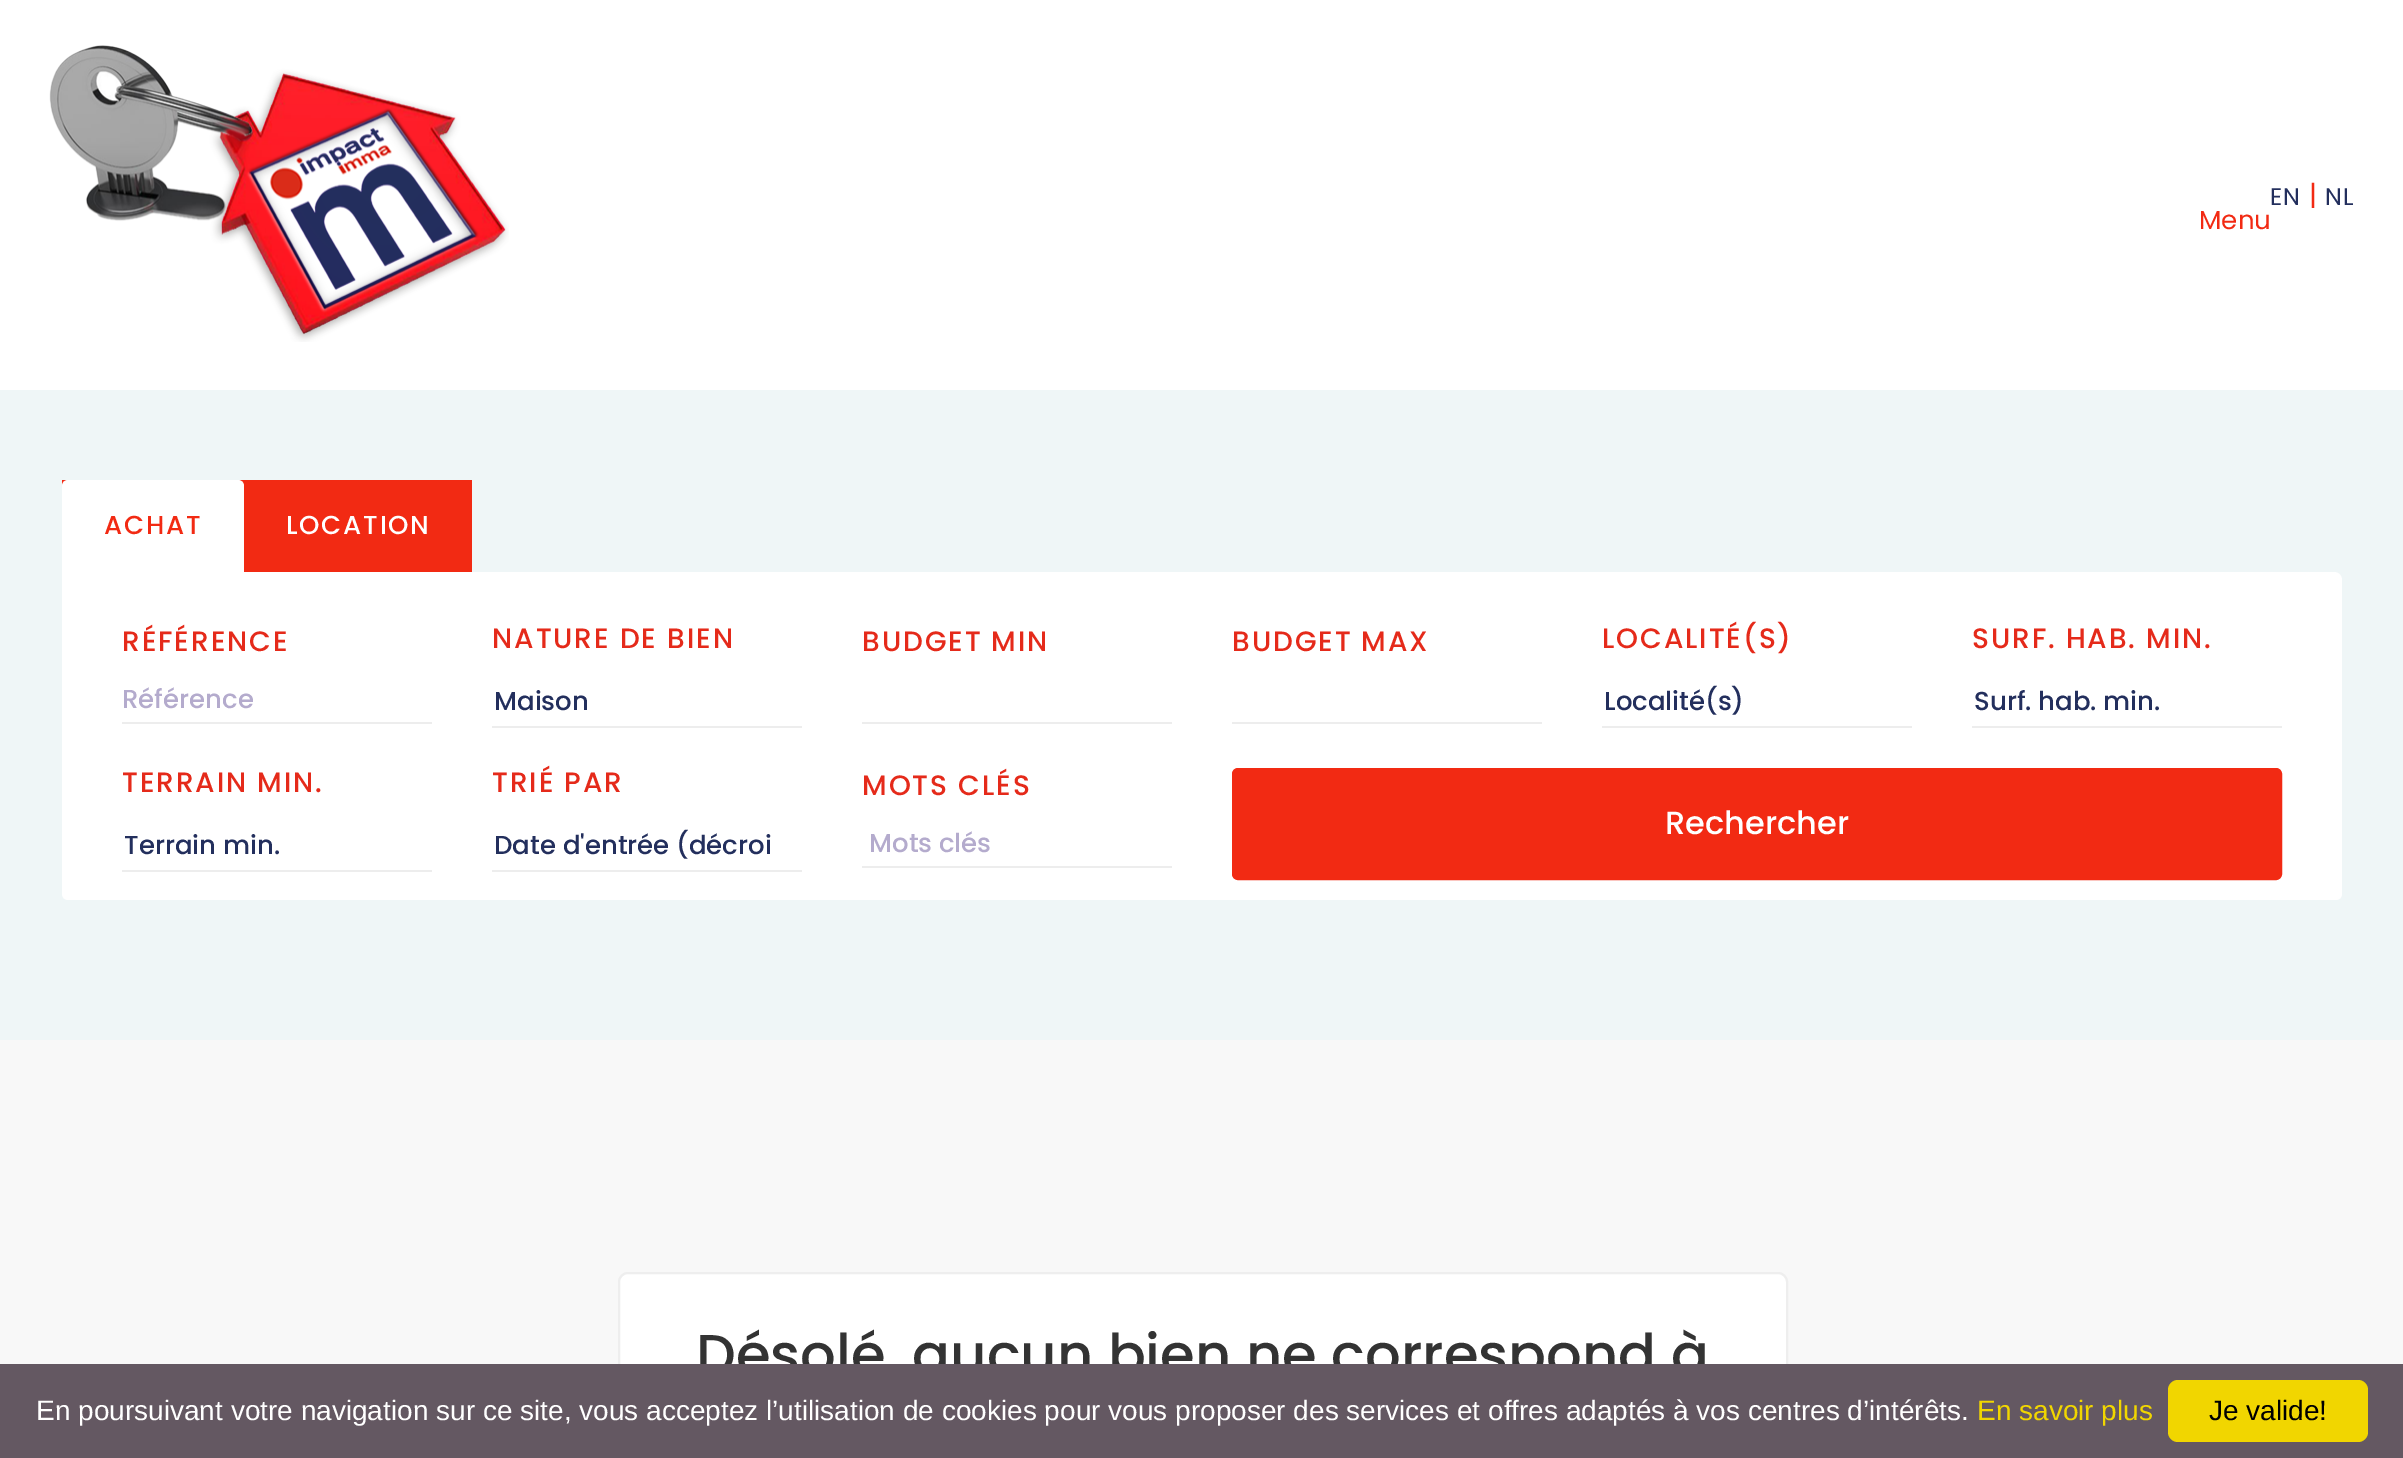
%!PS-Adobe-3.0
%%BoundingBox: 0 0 2403 1458
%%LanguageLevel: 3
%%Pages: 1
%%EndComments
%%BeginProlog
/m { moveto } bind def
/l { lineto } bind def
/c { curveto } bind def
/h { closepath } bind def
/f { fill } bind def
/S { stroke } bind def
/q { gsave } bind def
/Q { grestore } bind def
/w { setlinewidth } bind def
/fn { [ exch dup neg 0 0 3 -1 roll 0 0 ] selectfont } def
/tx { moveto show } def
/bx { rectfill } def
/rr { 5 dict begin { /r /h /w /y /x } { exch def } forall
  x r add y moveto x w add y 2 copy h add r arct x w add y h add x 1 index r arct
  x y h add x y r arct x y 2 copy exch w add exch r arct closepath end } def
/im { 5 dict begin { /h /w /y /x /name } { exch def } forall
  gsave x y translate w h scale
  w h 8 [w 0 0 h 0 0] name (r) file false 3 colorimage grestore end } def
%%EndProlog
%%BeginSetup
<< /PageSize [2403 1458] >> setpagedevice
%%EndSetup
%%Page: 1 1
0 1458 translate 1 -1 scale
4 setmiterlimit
1 setgray
0 0 2403 1458 bx
(image0.raw) 49 45 460 297 im
/Poppins-Regular 24 fn
0.137 0.184 0.365 setrgbcolor
2270 205 m 1 0 (EN) ashow
/Poppins-Regular 28 fn
0.949 0.165 0.075 setrgbcolor
(|) 2309 205 tx
/Poppins-Regular 24 fn
0.137 0.184 0.365 setrgbcolor
2325 205 m 1 0 (NL) ashow
/Poppins-Regular 26 fn
0.949 0.165 0.075 setrgbcolor
(Menu) 2199 229 tx
0.937 0.965 0.969 setrgbcolor
0 390 2403 650 bx
0.949 0.165 0.075 setrgbcolor
62 480 182 6 bx
1 setgray
68 480 m 238 480 l 241.5 480 244 482.5 244 486 c 244 572 l 62 572 l 62 486 l 62 482.5 64.5 480 68 480 c h f
/Poppins-Medium 26 fn
0.949 0.165 0.075 setrgbcolor
104 534 m 1.75 0 (ACHAT) ashow
244 480 228 92 bx
1 setgray
286 534 m 1.75 0 (LOCATION) ashow
62 572 m 2334 572 l 2338.5 572 2342 575.5 2342 580 c 2342 894 l 2342 897.5 2339.5 900 2336 900 c 68 900 l 64.5 900 62 897.5 62 894 c h f
/Poppins-Medium 28 fn
0.898 0.165 0.102 setrgbcolor
122 651 m 1.9 0 (RÉFÉRENCE) ashow
0.929 setgray
122 722 310 2 bx
/Poppins-Medium 26 fn
0.706 0.671 0.804 setrgbcolor
(Référence) 122 708 tx
/Poppins-Medium 28 fn
0.898 0.165 0.102 setrgbcolor
492 648 m 1.9 0 (NATURE DE BIEN) ashow
0.929 setgray
492 726 310 2 bx
/Poppins-Medium 26 fn
0.137 0.184 0.365 setrgbcolor
(Maison) 494 710 tx
/Poppins-Medium 28 fn
0.898 0.165 0.102 setrgbcolor
862 651 m 1.9 0 (BUDGET MIN) ashow
0.929 setgray
862 722 310 2 bx
0.898 0.165 0.102 setrgbcolor
1232 651 m 1.9 0 (BUDGET MAX) ashow
0.929 setgray
1232 722 310 2 bx
0.898 0.165 0.102 setrgbcolor
1602 648 m 1.9 0 (LOCALITÉ\(S\)) ashow
0.929 setgray
1602 726 310 2 bx
/Poppins-Medium 26 fn
0.137 0.184 0.365 setrgbcolor
(Localité\(s\)) 1604 710 tx
/Poppins-Medium 28 fn
0.898 0.165 0.102 setrgbcolor
1972 648 m 1.9 0 (SURF. HAB. MIN.) ashow
0.929 setgray
1972 726 310 2 bx
/Poppins-Medium 26 fn
0.137 0.184 0.365 setrgbcolor
(Surf. hab. min.) 1974 710 tx
/Poppins-Medium 28 fn
0.898 0.165 0.102 setrgbcolor
122 792 m 1.9 0 (TERRAIN MIN.) ashow
0.929 setgray
122 870 310 2 bx
/Poppins-Medium 26 fn
0.137 0.184 0.365 setrgbcolor
(Terrain min.) 124 854 tx
/Poppins-Medium 28 fn
0.898 0.165 0.102 setrgbcolor
492 792 m 1.9 0 (TRIÉ PAR) ashow
0.929 setgray
492 870 310 2 bx
/Poppins-Medium 26 fn
0.137 0.184 0.365 setrgbcolor
(Date d'entrée \(décroi) 494 854 tx
/Poppins-Medium 28 fn
0.898 0.165 0.102 setrgbcolor
862 795 m 1.9 0 (MOTS CLÉS) ashow
0.929 setgray
862 866 310 2 bx
/Poppins-Medium 26 fn
0.706 0.671 0.804 setrgbcolor
(Mots clés) 869 852 tx
0.949 0.165 0.075 setrgbcolor
1233 769 1048 110 5 rr q f Q
2 w
S
/Poppins-Medium 32 fn
1 setgray
(Rechercher) 1665 834 tx
0.973 setgray
0 1040 2403 324 bx
1 setgray
619 1273 1168 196 9 rr q f Q
0.933 setgray
S
/Poppins-Medium 56 fn
0.2 setgray
(Désolé, aucun bien ne correspond à) 696 1374 tx
0.392 0.345 0.384 setrgbcolor
0 1364 2403 94 bx
/LiberationSans-Regular 28 fn
1 setgray
(En poursuivant votre navigation sur ce site, vous acceptez l’utilisation de cookies pour vous proposer des services et offres adaptés à vos centres d’intérêts.) 36 1420 tx
0.945 0.839 0 setrgbcolor
(En savoir plus) 1977 1420 tx
2168 1380 200 62 10 rr f
0 setgray
(Je valide!) 2209 1420 tx
showpage
%%EOF
